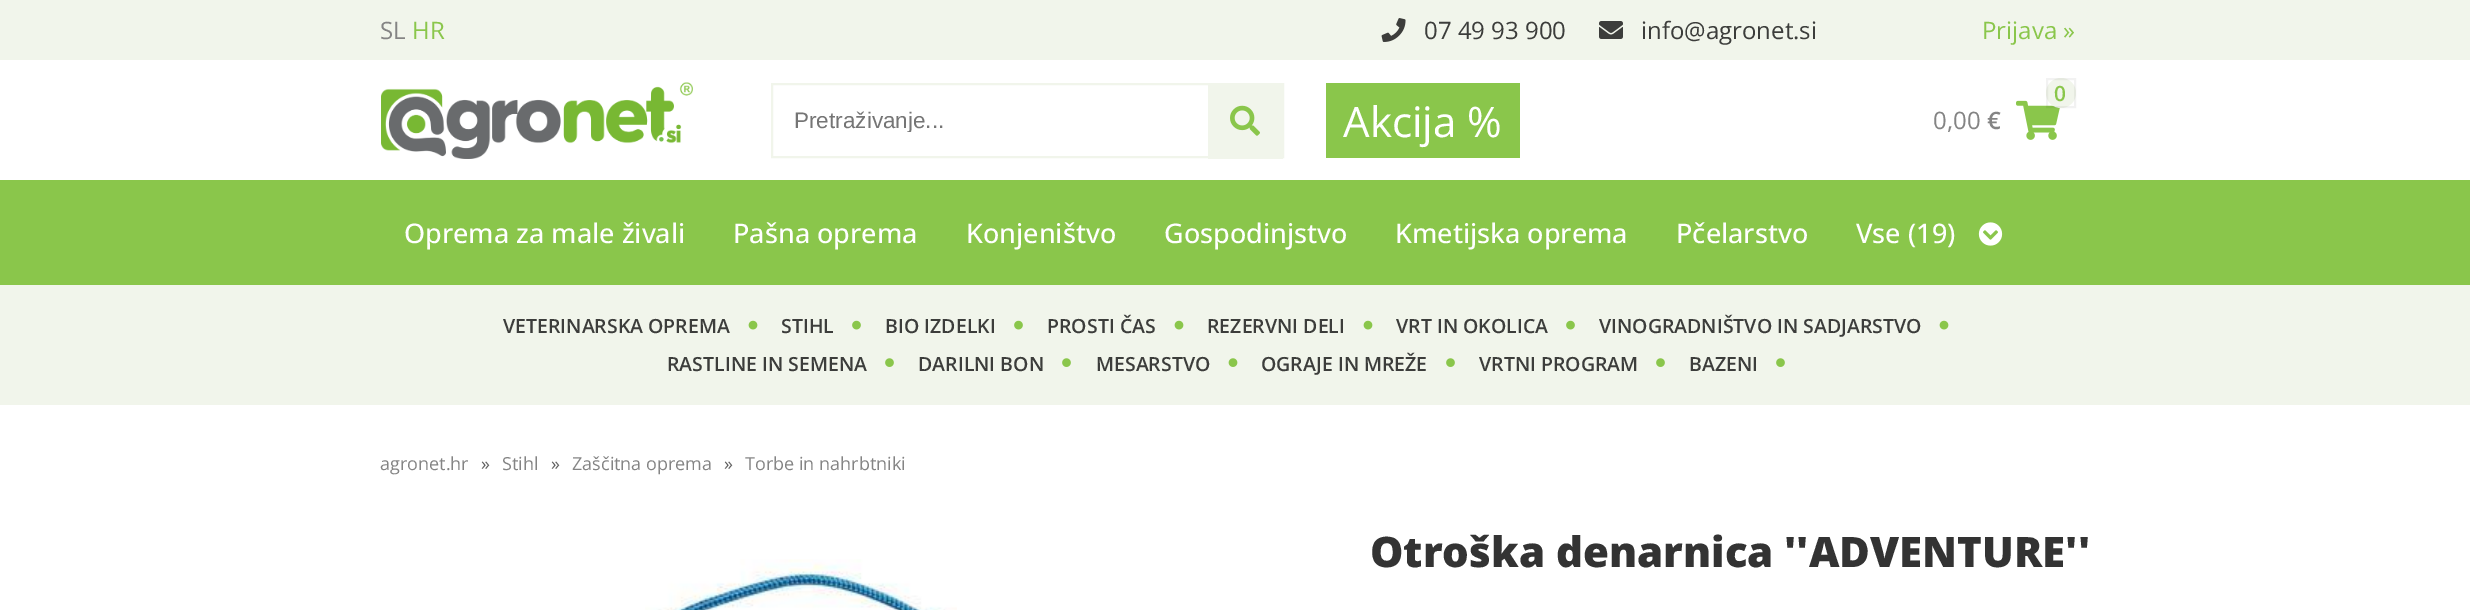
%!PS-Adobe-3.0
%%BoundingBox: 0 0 2470 610
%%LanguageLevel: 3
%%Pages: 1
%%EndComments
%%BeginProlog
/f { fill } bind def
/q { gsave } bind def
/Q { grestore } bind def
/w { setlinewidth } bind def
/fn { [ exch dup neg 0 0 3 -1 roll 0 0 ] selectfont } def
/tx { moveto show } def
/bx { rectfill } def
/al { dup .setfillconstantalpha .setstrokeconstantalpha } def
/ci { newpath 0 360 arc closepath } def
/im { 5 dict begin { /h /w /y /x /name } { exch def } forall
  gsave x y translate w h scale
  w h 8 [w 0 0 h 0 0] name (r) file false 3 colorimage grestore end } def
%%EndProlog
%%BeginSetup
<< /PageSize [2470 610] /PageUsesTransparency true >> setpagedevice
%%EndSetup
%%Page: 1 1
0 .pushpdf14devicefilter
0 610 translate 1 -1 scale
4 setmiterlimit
1 setgray
0 0 2470 610 bx
0.945 0.961 0.922 setrgbcolor
0 0 2470 60 bx
/OpenSans-Regular 24 fn
0.518 setgray
(SL) 380 39 tx
0.541 0.776 0.294 setrgbcolor
(HR) 412 39 tx
(image0.raw) 1381 18 25 24 im
0.235 0.239 0.231 setrgbcolor
(07 49 93 900) 1424 39 tx
(image1.raw) 1599 21 24 18 im
(info@agronet.si) 1641 39 tx
0.541 0.776 0.294 setrgbcolor
(Prijava ») 1982 39 tx
(image2.raw) 381 82 312 77 im
0.945 0.961 0.922 setrgbcolor
2 w
772 84 511 73 rectstroke
q
795 107 413 25 rectclip
/LiberationSans-Regular 22.5 fn
0.459 setgray
(Pretraživanje...) 794 128 tx
Q
1208 85 75 74 bx
(image3.raw) 1230 105 30 31 im
0.541 0.776 0.294 setrgbcolor
1326 83 194 75 bx
/OpenSans-Regular 42 fn
1 setgray
(Akcija %) 1343 137 tx
(image4.raw) 2016 100 44 40 im
0.945 0.961 0.922 setrgbcolor
2061 93 15 ci f
0.05 al
0 setgray
2047 79 28 28 rectstroke
/OpenSans-SemiBold 21 fn
1 al
0.541 0.776 0.294 setrgbcolor
(0) 2054 101 tx
/OpenSans-Regular 24 fn
0.518 setgray
(0,00) 1933 129 tx
/OpenSans-SemiBold 24 fn
(€) 1987 129 tx
0.541 0.776 0.294 setrgbcolor
0 180 2470 105 bx
/OpenSans-Medium 27 fn
1 setgray
(Oprema za male živali) 404 243 tx
(Pašna oprema) 733 243 tx
(Konjeništvo) 966 243 tx
(Gospodinjstvo) 1164 243 tx
(Kmetijska oprema) 1395 243 tx
(Pčelarstvo) 1676 243 tx
(Vse \(19\)) 1856 243 tx
(image5.raw) 1978 222 25 24 im
0.945 0.961 0.922 setrgbcolor
0 285 2470 120 bx
/OpenSans-SemiBold 19.5 fn
0.235 0.239 0.231 setrgbcolor
(VETERINARSKA OPREMA) 503 333 tx
(image6.raw) 748 320 10 10 im
(STIHL) 781 333 tx
(image7.raw) 852 320 9 10 im
(BIO IZDELKI) 885 333 tx
(image7.raw) 1014 320 9 10 im
(PROSTI ČAS) 1047 333 tx
(image6.raw) 1174 320 10 10 im
(REZERVNI DELI) 1207 333 tx
(image6.raw) 1363 320 10 10 im
(VRT IN OKOLICA) 1396 333 tx
(image7.raw) 1566 320 9 10 im
(VINOGRADNIŠTVO IN SADJARSTVO) 1599 333 tx
(image6.raw) 1939 320 10 10 im
(RASTLINE IN SEMENA) 667 371 tx
(image8.raw) 885 358 9 9 im
(DARILNI BON) 918 371 tx
(image8.raw) 1062 358 9 9 im
(MESARSTVO) 1096 371 tx
(image9.raw) 1228 358 10 9 im
(OGRAJE IN MREŽE) 1261 371 tx
(image8.raw) 1446 358 9 9 im
(VRTNI PROGRAM) 1479 371 tx
(image8.raw) 1656 358 9 9 im
(BAZENI) 1689 371 tx
(image8.raw) 1776 358 9 9 im
/OpenSans-Regular 18 fn
0.518 setgray
(agronet.hr) 380 470 tx
0.376 setgray
(») 481 470 tx
0.518 setgray
(Stihl) 502 470 tx
0.376 setgray
(») 551 470 tx
0.518 setgray
(Zaščitna oprema) 572 470 tx
0.376 setgray
(») 724 470 tx
0.518 setgray
(Torbe in nahrbtniki) 745 470 tx
/OpenSans-ExtraBold 42 fn
0.2 setgray
(Otroška denarnica ''ADVENTURE'') 1370 567 tx
(image10.raw) 645 559 312 51 im
.poppdf14devicefilter showpage
%%EOF
